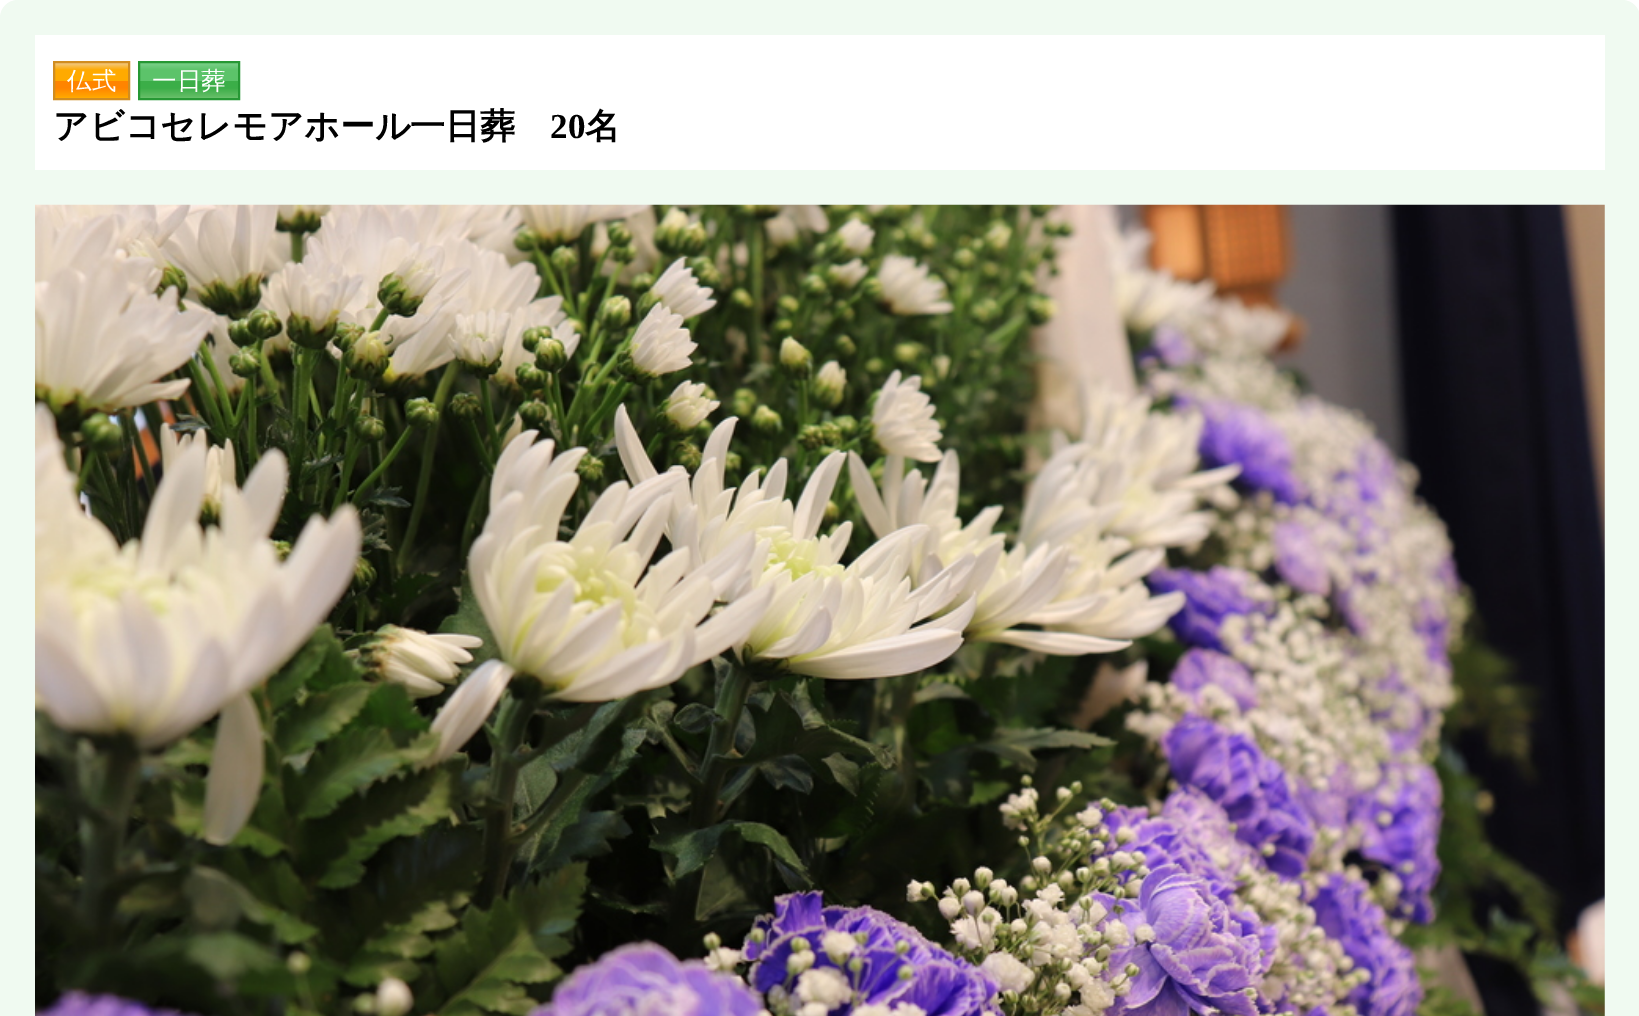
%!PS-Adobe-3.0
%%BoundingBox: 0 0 1639 1016
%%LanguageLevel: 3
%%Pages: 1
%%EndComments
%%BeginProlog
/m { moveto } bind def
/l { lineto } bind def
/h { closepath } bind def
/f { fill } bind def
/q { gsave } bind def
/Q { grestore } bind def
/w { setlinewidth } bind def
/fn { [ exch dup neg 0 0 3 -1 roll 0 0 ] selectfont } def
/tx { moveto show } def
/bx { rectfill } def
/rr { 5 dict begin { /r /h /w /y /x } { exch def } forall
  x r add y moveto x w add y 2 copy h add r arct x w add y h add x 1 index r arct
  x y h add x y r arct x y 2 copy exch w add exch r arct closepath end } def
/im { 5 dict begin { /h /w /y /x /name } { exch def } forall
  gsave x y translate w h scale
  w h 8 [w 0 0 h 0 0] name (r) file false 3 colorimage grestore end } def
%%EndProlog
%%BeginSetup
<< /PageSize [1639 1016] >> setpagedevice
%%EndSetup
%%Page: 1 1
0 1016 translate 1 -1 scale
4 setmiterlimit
1 setgray
0 0 1639 1016 bx
0.941 0.98 0.945 setrgbcolor
0 0 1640 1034 18 rr f
1 setgray
35 35 1570 135 bx
q 55 63 m 128 63 l 128 98 l 55 98 l h clip newpath
<< /ShadingType 2 /ColorSpace /DeviceRGB /Coords [91 63 91 98] /Extend [true true] /Function << /FunctionType 3 /Domain [0 1] /Functions [<< /FunctionType 2 /Domain [0 1] /C0 [0.949 0.792 0.525] /C1 [1 0.667 0] /N 1 >> << /FunctionType 2 /Domain [0 1] /C0 [1 0.667 0] /C1 [1 0.667 0] /N 1 >> << /FunctionType 2 /Domain [0 1] /C0 [1 0.667 0] /C1 [1 0.518 0] /N 1 >> << /FunctionType 2 /Domain [0 1] /C0 [1 0.518 0] /C1 [1 0.518 0] /N 1 >> << /FunctionType 2 /Domain [0 1] /C0 [1 0.518 0] /C1 [1 0.667 0] /N 1 >>] /Bounds [0.2 0.5 0.51 0.71] /Encode [0 1 0 1 0 1 0 1 0 1] >> >> shfill Q
0.82 0.553 0.125 setrgbcolor
2 w
54 62 75 37 rectstroke
/WenQuanYiZenHei-Medium 24.5 fn
1 setgray
(仏式) 67 89 tx
q 140 63 m 238 63 l 238 98 l 140 98 l h clip newpath
<< /ShadingType 2 /ColorSpace /DeviceRGB /Coords [189 63 189 98] /Extend [true true] /Function << /FunctionType 3 /Domain [0 1] /Functions [<< /FunctionType 2 /Domain [0 1] /C0 [0.482 0.82 0.545] /C1 [0.361 0.765 0.416] /N 1 >> << /FunctionType 2 /Domain [0 1] /C0 [0.361 0.765 0.416] /C1 [0.361 0.765 0.416] /N 1 >> << /FunctionType 2 /Domain [0 1] /C0 [0.361 0.765 0.416] /C1 [0.231 0.682 0.282] /N 1 >> << /FunctionType 2 /Domain [0 1] /C0 [0.231 0.682 0.282] /C1 [0.231 0.682 0.282] /N 1 >> << /FunctionType 2 /Domain [0 1] /C0 [0.231 0.682 0.282] /C1 [0.404 0.749 0.412] /N 1 >>] /Bounds [0.2 0.5 0.51 0.71] /Encode [0 1 0 1 0 1 0 1 0 1] >> >> shfill Q
0.149 0.596 0.204 setrgbcolor
139 62 100 37 rectstroke
1 setgray
(一日葬) 152 89 tx
/WenQuanYiZenHei-Bold 35 fn
0 setgray
(アビコセレモアホール一日葬) 53 138 tx
/LiberationSerif-Bold 35 fn
(20) 550 138 tx
/WenQuanYiZenHei-Bold 35 fn
(名) 585 138 tx
(image0.raw) 35 204 1570 812 im
showpage
%%EOF
